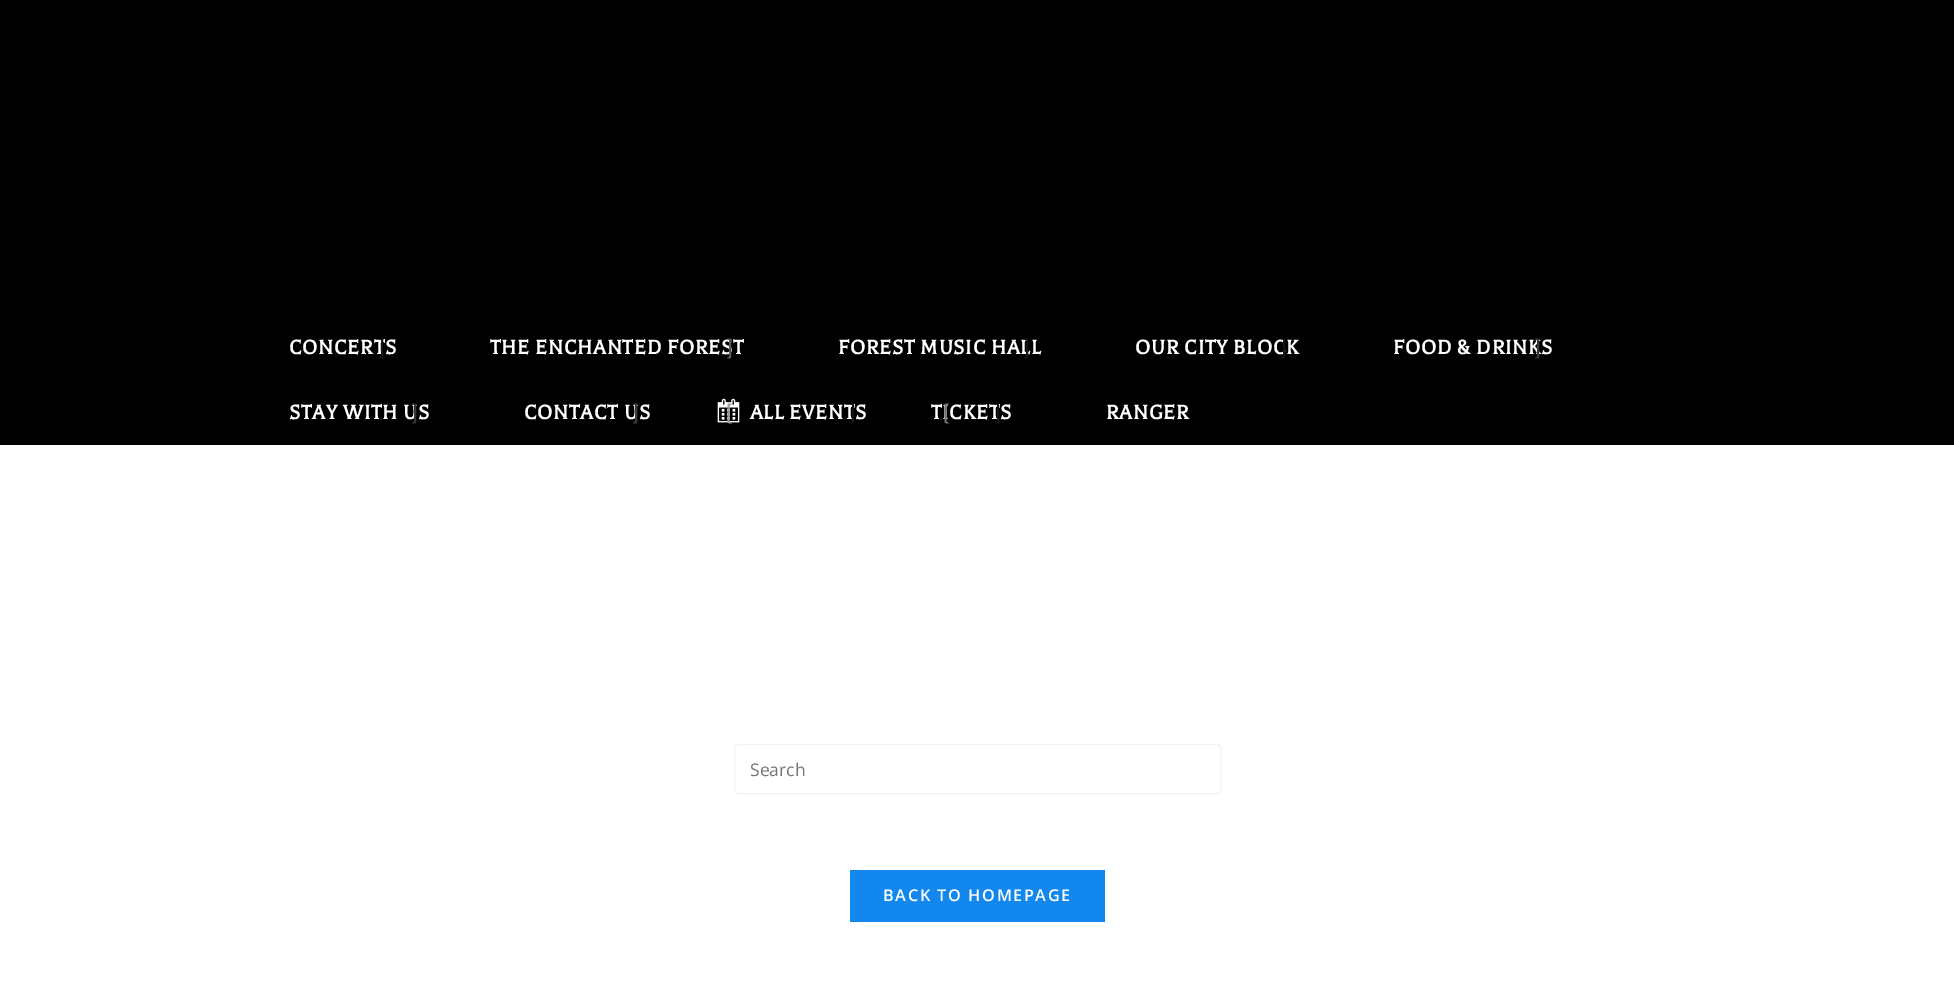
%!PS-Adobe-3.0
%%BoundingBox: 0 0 1954 984
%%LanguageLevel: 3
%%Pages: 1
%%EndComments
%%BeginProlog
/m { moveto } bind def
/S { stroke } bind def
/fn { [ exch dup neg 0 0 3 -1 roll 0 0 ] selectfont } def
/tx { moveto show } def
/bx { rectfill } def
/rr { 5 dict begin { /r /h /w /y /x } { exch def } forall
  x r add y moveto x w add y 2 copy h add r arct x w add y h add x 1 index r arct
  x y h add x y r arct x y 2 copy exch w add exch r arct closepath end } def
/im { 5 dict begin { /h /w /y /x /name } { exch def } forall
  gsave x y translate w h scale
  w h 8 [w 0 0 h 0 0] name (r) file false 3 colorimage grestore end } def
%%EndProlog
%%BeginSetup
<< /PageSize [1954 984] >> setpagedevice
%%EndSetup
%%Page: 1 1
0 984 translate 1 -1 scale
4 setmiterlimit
1 setgray
0 0 1954 984 bx
0 setgray
0 0 1954 445 bx
/Balthazar-Bold 22.5 fn
1 setgray
289 354 m 0.75 0 (CONCERTS) ashow
0.078 setgray
379 354 m 0.75 0 (]) ashow
1 setgray
490 354 m 0.75 0 (THE ENCHANTED FOREST) ashow
0.341 setgray
727 354 m 0.75 0 (]) ashow
1 setgray
838 354 m 0.75 0 (FOREST MUSIC HALL) ashow
0.078 setgray
1024 354 m 0.75 0 (]) ashow
1 setgray
1135 354 m 0.75 0 (OUR CITY BLOCK) ashow
0.078 setgray
1281 354 m 0.75 0 (]) ashow
1 setgray
1393 354 m 0.75 0 (FOOD & DRINKS) ashow
0.216 setgray
1535 354 m 0.75 0 (]) ashow
1 setgray
289 419 m 0.75 0 (STAY WITH US) ashow
0.216 setgray
412 419 m 0.75 0 (]) ashow
1 setgray
524 419 m 0.75 0 (CONTACT US) ashow
0.239 setgray
633 419 m 0.75 0 (]) ashow
(image0.raw) 717 398 23 25 im
0.612 setgray
726 419 m 0.75 0 ([) ashow
1 setgray
750 419 m 0.75 0 (ALL EVENTS) ashow
0.078 setgray
850 419 m 0.75 0 (]) ashow
1 setgray
931 419 m 0.75 0 (TICKETS) ashow
0.431 setgray
943 419 m 0.75 0 ([) ashow
0.078 setgray
995 419 m 0.75 0 (]) ashow
1 setgray
1106 419 m 0.75 0 (RANGER) ashow
0.949 setgray
734.5 744.5 486 49 3.5 rr S
/OpenSans-Regular 17.5 fn
0.459 setgray
(Search) 750 776 tx
0.071 0.529 0.929 setrgbcolor
850 870 255 52 bx
/OpenSans-SemiBold 16.25 fn
1 setgray
883 901 m 1.6 0 (BACK TO HOMEPAGE) ashow
showpage
%%EOF
